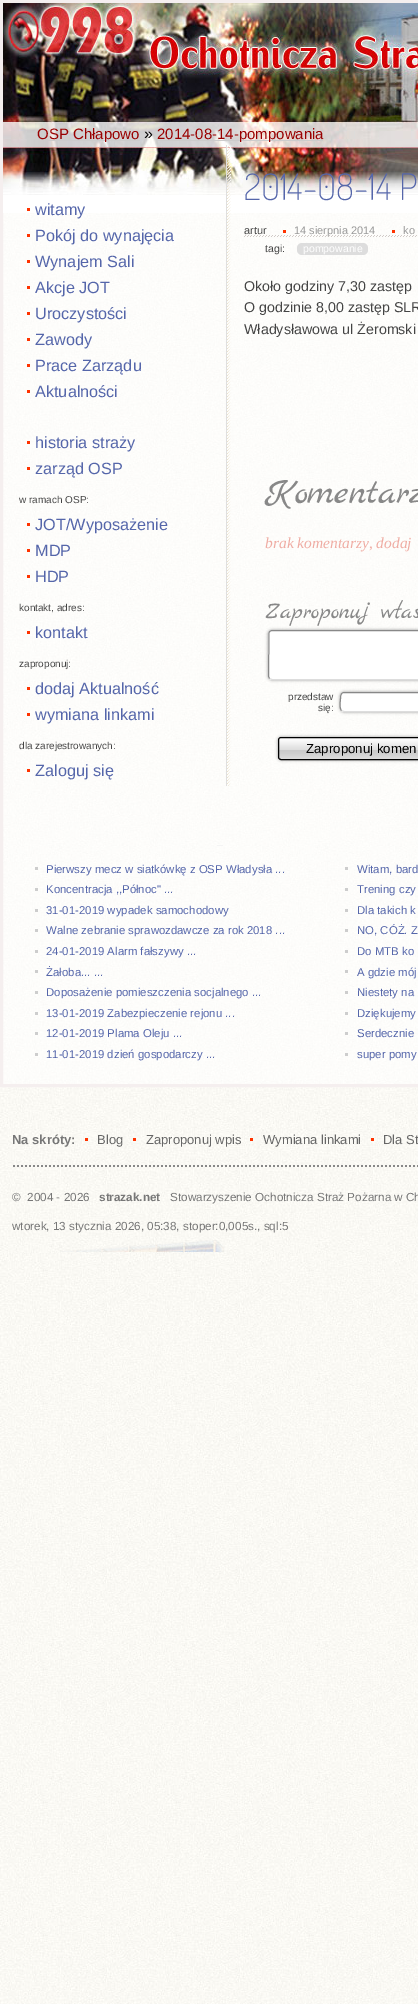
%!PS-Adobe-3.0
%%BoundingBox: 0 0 418 2004
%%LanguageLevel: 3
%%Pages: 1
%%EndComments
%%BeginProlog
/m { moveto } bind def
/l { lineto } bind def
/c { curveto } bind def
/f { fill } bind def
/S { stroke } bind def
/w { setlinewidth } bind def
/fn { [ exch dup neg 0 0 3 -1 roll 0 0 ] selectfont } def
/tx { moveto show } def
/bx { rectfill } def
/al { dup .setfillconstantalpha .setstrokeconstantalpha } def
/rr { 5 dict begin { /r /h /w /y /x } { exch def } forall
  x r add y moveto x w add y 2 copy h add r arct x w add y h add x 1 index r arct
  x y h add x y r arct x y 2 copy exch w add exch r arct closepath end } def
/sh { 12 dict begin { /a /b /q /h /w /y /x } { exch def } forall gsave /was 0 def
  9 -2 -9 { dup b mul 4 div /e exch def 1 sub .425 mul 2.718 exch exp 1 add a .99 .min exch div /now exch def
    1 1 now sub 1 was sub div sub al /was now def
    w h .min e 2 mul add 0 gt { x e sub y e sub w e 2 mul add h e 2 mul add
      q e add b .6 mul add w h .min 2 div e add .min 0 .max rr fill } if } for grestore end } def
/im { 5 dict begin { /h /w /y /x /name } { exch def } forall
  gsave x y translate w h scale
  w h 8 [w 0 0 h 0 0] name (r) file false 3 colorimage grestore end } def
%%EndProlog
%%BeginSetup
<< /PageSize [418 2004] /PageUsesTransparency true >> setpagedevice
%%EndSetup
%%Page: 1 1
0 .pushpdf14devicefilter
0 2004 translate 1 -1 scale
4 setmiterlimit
1 setgray
0 0 418 2004 bx
(image0.raw) 0 213 418 1791 im
(image1.raw) 59 1240 165 12 im
0.6 al
3 213 415 871 bx
1 al
0.961 0.937 0.937 setrgbcolor
3 w
1.5 1.5 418 1084 rectstroke
(image2.raw) 3 3 415 210 im
0.8 setgray
48 140 92 1 bx
/LiberationSans-Regular 15 fn
0.6 0 0 setrgbcolor
(OSP Chłapowo) 37 139 tx
/LiberationSans-Regular 16 fn
0 setgray
(») 144 139 tx
0.8 setgray
157 140 166 1 bx
/LiberationSans-Regular 15 fn
0.6 0 0 setrgbcolor
(2014-08-14-pompowania) 157 139 tx
1 0.2 0 setrgbcolor
27 208 3 3 bx
/LiberationSans-Regular 16.25 fn
0.333 0.4 0.667 setrgbcolor
(witamy) 35 215 tx
1 0.2 0 setrgbcolor
27 234 3 3 bx
0.333 0.4 0.667 setrgbcolor
(Pokój do wynajęcia) 35 241 tx
1 0.2 0 setrgbcolor
27 260 3 3 bx
0.333 0.4 0.667 setrgbcolor
(Wynajem Sali) 35 267 tx
1 0.2 0 setrgbcolor
27 286 3 3 bx
0.333 0.4 0.667 setrgbcolor
(Akcje JOT) 35 293 tx
1 0.2 0 setrgbcolor
27 312 3 3 bx
0.333 0.4 0.667 setrgbcolor
(Uroczystości) 35 319 tx
1 0.2 0 setrgbcolor
27 338 3 3 bx
0.333 0.4 0.667 setrgbcolor
(Zawody) 35 345 tx
1 0.2 0 setrgbcolor
27 364 3 3 bx
0.333 0.4 0.667 setrgbcolor
(Prace Zarządu) 35 371 tx
1 0.2 0 setrgbcolor
27 390 3 3 bx
0.333 0.4 0.667 setrgbcolor
(Aktualności) 35 397 tx
1 0.2 0 setrgbcolor
27 441 3 3 bx
0.333 0.4 0.667 setrgbcolor
(historia straży) 35 448 tx
1 0.2 0 setrgbcolor
27 467 3 3 bx
0.333 0.4 0.667 setrgbcolor
(zarząd OSP) 35 474 tx
/LiberationSans-Regular 10 fn
0.267 setgray
(w ramach OSP:) 19 503 tx
1 0.2 0 setrgbcolor
27 523 3 3 bx
/LiberationSans-Regular 16.25 fn
0.333 0.4 0.667 setrgbcolor
(JOT/Wyposażenie) 35 530 tx
1 0.2 0 setrgbcolor
27 549 3 3 bx
0.333 0.4 0.667 setrgbcolor
(MDP) 35 556 tx
1 0.2 0 setrgbcolor
27 575 3 3 bx
0.333 0.4 0.667 setrgbcolor
(HDP) 35 582 tx
/LiberationSans-Regular 10 fn
0.267 setgray
(kontakt, adres:) 19 611 tx
1 0.2 0 setrgbcolor
27 631 3 3 bx
/LiberationSans-Regular 16.25 fn
0.333 0.4 0.667 setrgbcolor
(kontakt) 35 638 tx
/LiberationSans-Regular 10 fn
0.267 setgray
(zaproponuj:) 19 667 tx
1 0.2 0 setrgbcolor
27 687 3 3 bx
/LiberationSans-Regular 16.25 fn
0.333 0.4 0.667 setrgbcolor
(dodaj Aktualność) 35 694 tx
1 0.2 0 setrgbcolor
27 713 3 3 bx
0.333 0.4 0.667 setrgbcolor
(wymiana linkami) 35 720 tx
/LiberationSans-Regular 10 fn
0.267 setgray
(dla zarejestrowanych:) 19 749 tx
1 0.2 0 setrgbcolor
27 769 3 3 bx
/LiberationSans-Regular 16.25 fn
0.333 0.4 0.667 setrgbcolor
(Zaloguj się) 35 776 tx
(image3.raw) 226 145 5 641 im
/Dosis-ExtraLight 36.5 fn
(2014-08-14 P) 244 200 tx
(image4.raw) 244 235 173 2 im
/LiberationSans-Regular 11 fn
0.267 setgray
(artur) 244 234 tx
0.6 setgray
(14 sierpnia 2014) 294 234 tx
1 0.2 0 setrgbcolor
283 230 3 3 bx
0.6 setgray
(ko) 403 234 tx
1 0.2 0 setrgbcolor
392 230 3 3 bx
/LiberationSans-Regular 10.5 fn
0.267 setgray
(tagi:) 265 252 tx
0.867 setgray
297 243 71 12 5 rr f
1 setgray
(pompowanie) 303 252 tx
/LiberationSans-Regular 14.25 fn
0.267 setgray
(Około godziny 7,30 zastęp) 244 291 tx
(O godzinie 8,00 zastęp SLR) 244 312 tx
(Władysławowa ul Żeromski) 244 334 tx
/MarckScript-Regular 37.5 fn
0.533 setgray
(Komentarz) 265 503 tx
/LiberationSerif-Italic 15.5 fn
0.937 0.675 0.639 setrgbcolor
(brak komentarzy, dodaj) 265 548 tx
/MarckScript-Regular 23.5 fn
0.533 setgray
(Zaproponuj włas) 265 618 tx
0.6 setgray
268 630 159 50 4 1.5 1 sh
1 setgray
268 630 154 50 4 rr f
0.867 setgray
1 w
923.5 631.5 m 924.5 633.5 l 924 677.5 l 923.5 678.5 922.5 679.5 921 679.5 c 272 679.5 l 269.5 678.5 l S
0.533 setgray
269.5 678.5 m 268.5 676.5 l 269 632.5 l 269.5 631.5 270.5 630.5 272 630.5 c 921 630.5 l 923.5 631.5 l S
/LiberationSans-Regular 10 fn
0.267 setgray
(przedstaw) 288 700 tx
(się:) 318 711 tx
0.6 setgray
340 692 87 20 4 1.5 1 sh
1 setgray
340 692 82 20 4 rr f
0.867 setgray
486.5 693.5 m 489 696 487.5 703 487.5 706 c 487.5 708.5 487 711.5 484 711.5 c 344 711.5 l 341.5 710.5 l S
0.533 setgray
341.5 710.5 m 339 708 340.5 701 340.5 698 c 340.5 695.5 341 692.5 344 692.5 c 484 692.5 l 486.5 693.5 l S
0.6 setgray
278 737 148 23 3 1.5 1 sh
(image5.raw) 278 737 140 23 im
0 setgray
278.5 737.5 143 22 2.5 rr S
/LiberationSans-Regular 13.25 fn
(Zaproponuj komen) 306 753 tx
0.957 setgray
217 845 6 1 bx
0.804 setgray
35 867 3 3 bx
/LiberationSans-Regular 11.4 fn
0.333 0.4 0.667 setrgbcolor
(Pierwszy mecz w siatkówkę z OSP Władysła ...) 46 873 tx
0.804 setgray
35 888 3 3 bx
0.333 0.4 0.667 setrgbcolor
(Koncentracja ,,Północ" ...) 46 893 tx
0.804 setgray
35 909 3 3 bx
0.333 0.4 0.667 setrgbcolor
(31-01-2019 wypadek samochodowy) 46 914 tx
0.804 setgray
35 929 3 3 bx
0.333 0.4 0.667 setrgbcolor
(Walne zebranie sprawozdawcze za rok 2018 ...) 46 934 tx
0.804 setgray
35 950 3 3 bx
0.333 0.4 0.667 setrgbcolor
(24-01-2019 Alarm fałszywy ...) 46 955 tx
0.804 setgray
35 970 3 3 bx
0.333 0.4 0.667 setrgbcolor
(Żałoba... ...) 46 976 tx
0.804 setgray
35 991 3 3 bx
0.333 0.4 0.667 setrgbcolor
(Doposażenie pomieszczenia socjalnego ...) 46 996 tx
0.804 setgray
35 1012 3 3 bx
0.333 0.4 0.667 setrgbcolor
(13-01-2019 Zabezpieczenie rejonu ...) 46 1017 tx
0.804 setgray
35 1032 3 3 bx
0.333 0.4 0.667 setrgbcolor
(12-01-2019 Plama Oleju ...) 46 1037 tx
0.804 setgray
35 1053 3 3 bx
0.333 0.4 0.667 setrgbcolor
(11-01-2019 dzień gospodarczy ...) 46 1058 tx
0.804 setgray
345 867 3 3 bx
0.333 0.4 0.667 setrgbcolor
(Witam, bard) 357 873 tx
0.804 setgray
345 888 3 3 bx
0.333 0.4 0.667 setrgbcolor
(Trening czy) 357 893 tx
0.804 setgray
345 909 3 3 bx
0.333 0.4 0.667 setrgbcolor
(Dla takich k) 357 914 tx
0.804 setgray
345 929 3 3 bx
0.333 0.4 0.667 setrgbcolor
(NO, CÓŻ. Z) 357 934 tx
0.804 setgray
345 950 3 3 bx
0.333 0.4 0.667 setrgbcolor
(Do MTB ko) 357 955 tx
0.804 setgray
345 970 3 3 bx
0.333 0.4 0.667 setrgbcolor
(A gdzie mój) 357 976 tx
0.804 setgray
345 991 3 3 bx
0.333 0.4 0.667 setrgbcolor
(Niestety na) 357 996 tx
0.804 setgray
345 1012 3 3 bx
0.333 0.4 0.667 setrgbcolor
(Dziękujemy) 357 1017 tx
0.804 setgray
345 1032 3 3 bx
0.333 0.4 0.667 setrgbcolor
(Serdecznie) 357 1037 tx
0.804 setgray
345 1053 3 3 bx
0.333 0.4 0.667 setrgbcolor
(super pomy) 357 1058 tx
(image6.raw) 13 1165 405 2 im
/LiberationSans-Bold 13 fn
0.467 setgray
(Na skróty:) 12 1144 tx
/LiberationSans-Regular 13 fn
0.4 setgray
(Blog) 97 1144 tx
1 0.2 0 setrgbcolor
85 1138 3 3 bx
0.4 setgray
(Zaproponuj wpis) 146 1144 tx
1 0.2 0 setrgbcolor
133 1138 3 3 bx
0.4 setgray
(Wymiana linkami) 263 1144 tx
1 0.2 0 setrgbcolor
250 1138 3 3 bx
0.4 setgray
(Dla St) 383 1144 tx
1 0.2 0 setrgbcolor
371 1138 3 3 bx
/LiberationSans-Regular 11.7 fn
0.467 setgray
(©  2004 - 2026) 12 1201 tx
/LiberationSans-Bold 11.7 fn
(strazak.net) 99 1201 tx
/LiberationSans-Regular 11.7 fn
(Stowarzyszenie Ochotnicza Straż Pożarna w Ch) 170 1201 tx
(wtorek, 13 stycznia 2026, 05:38, stoper:0,005s., sql:5) 12 1230 tx
.poppdf14devicefilter showpage
%%EOF
